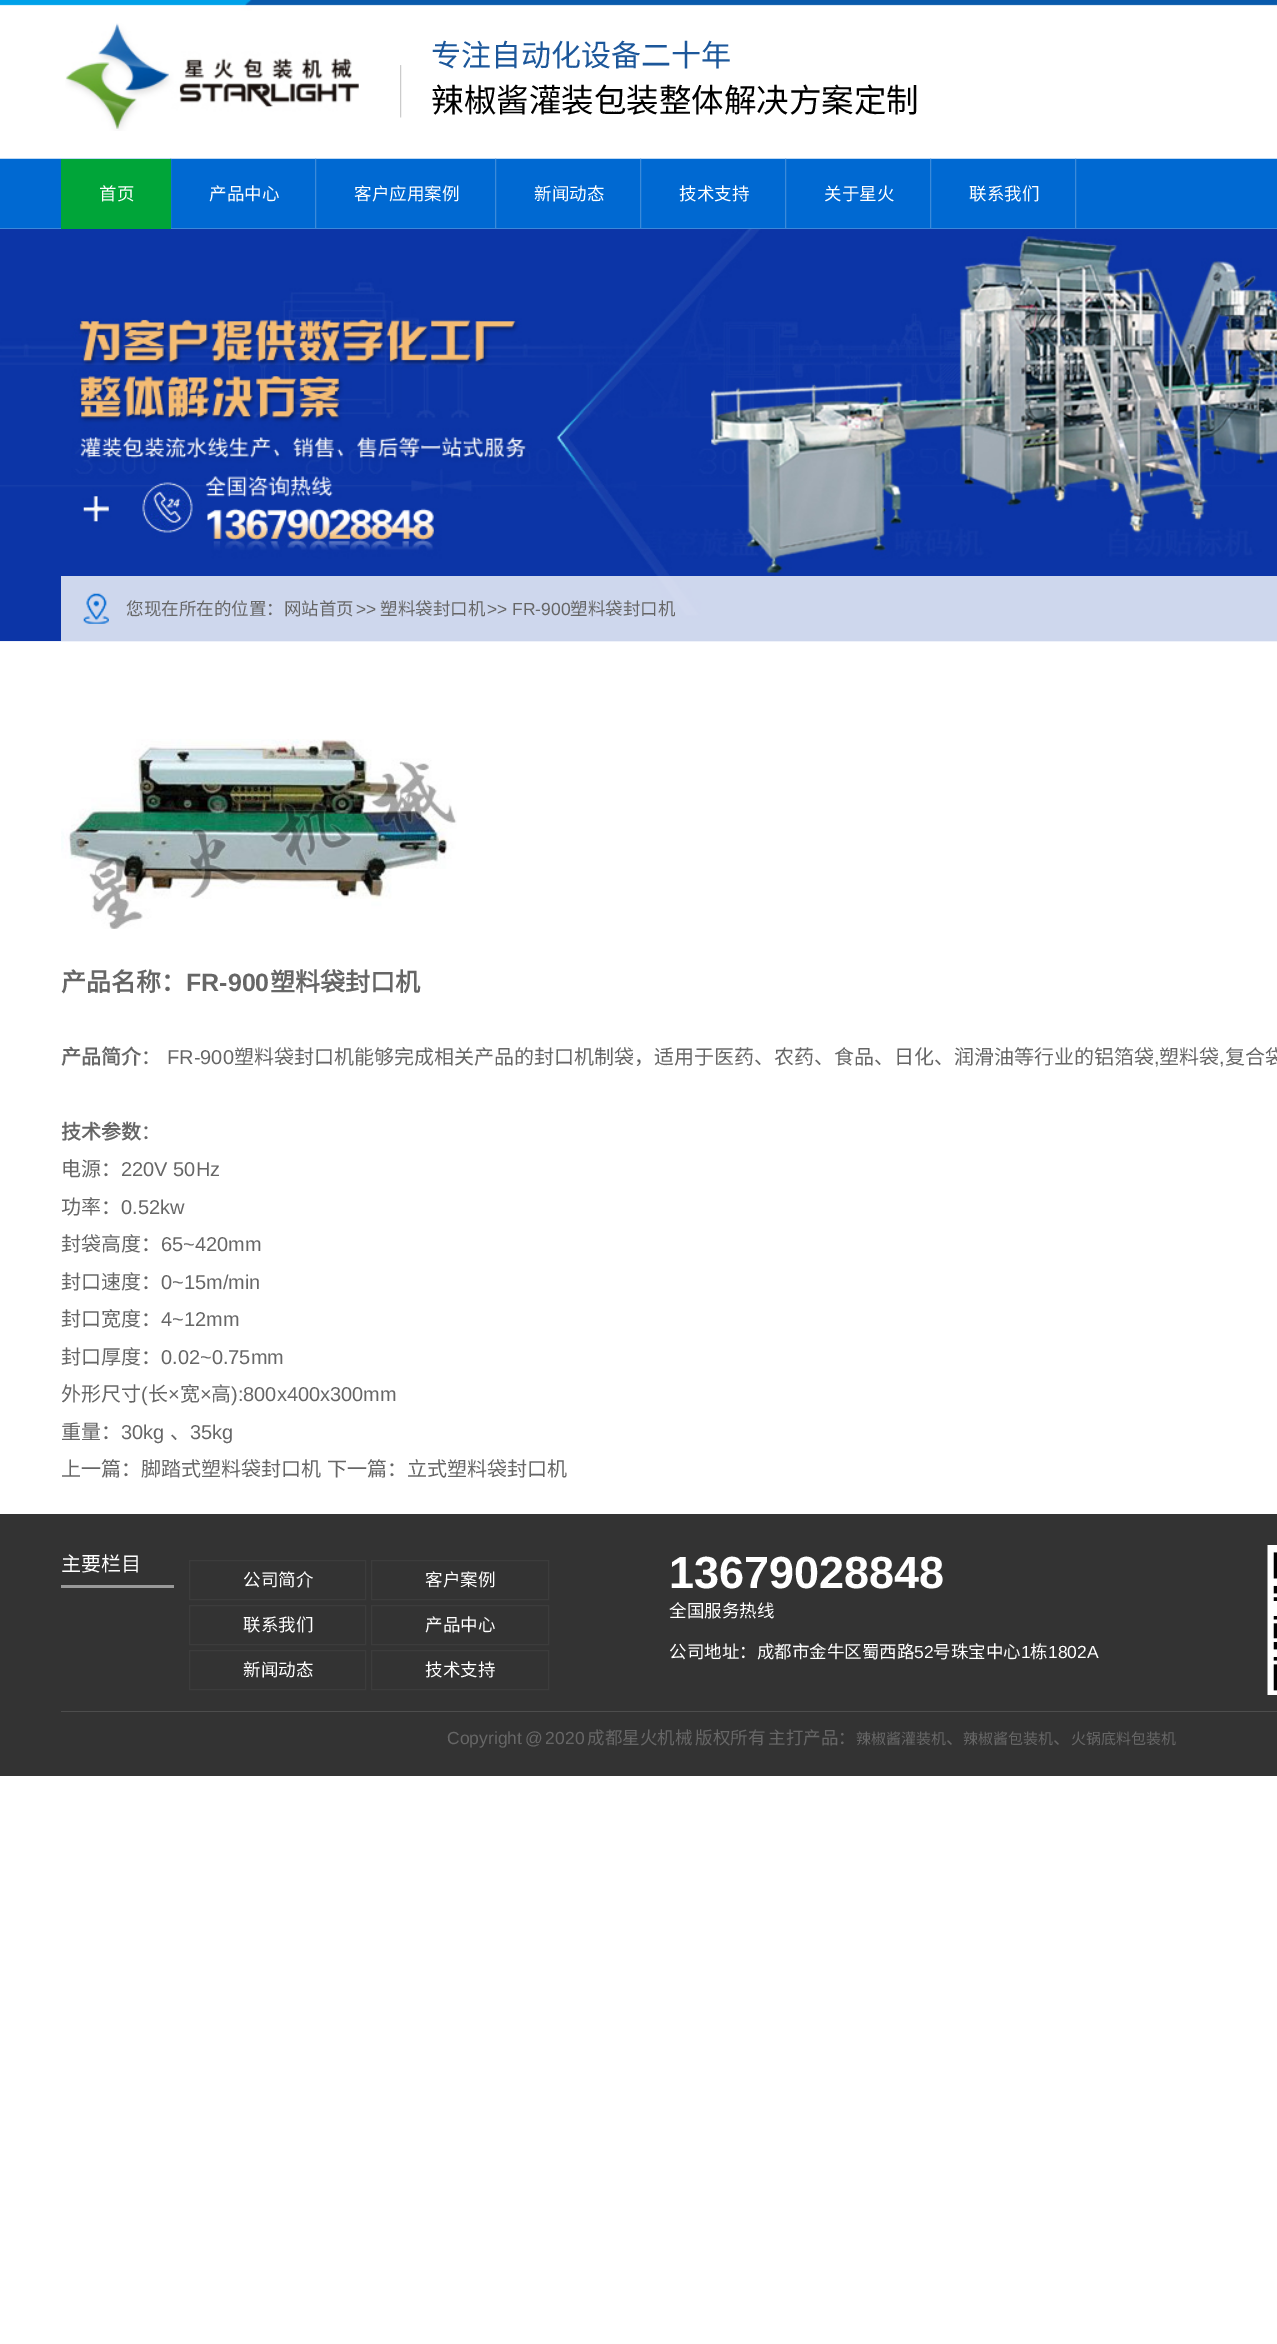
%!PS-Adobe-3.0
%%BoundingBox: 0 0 1277 2344
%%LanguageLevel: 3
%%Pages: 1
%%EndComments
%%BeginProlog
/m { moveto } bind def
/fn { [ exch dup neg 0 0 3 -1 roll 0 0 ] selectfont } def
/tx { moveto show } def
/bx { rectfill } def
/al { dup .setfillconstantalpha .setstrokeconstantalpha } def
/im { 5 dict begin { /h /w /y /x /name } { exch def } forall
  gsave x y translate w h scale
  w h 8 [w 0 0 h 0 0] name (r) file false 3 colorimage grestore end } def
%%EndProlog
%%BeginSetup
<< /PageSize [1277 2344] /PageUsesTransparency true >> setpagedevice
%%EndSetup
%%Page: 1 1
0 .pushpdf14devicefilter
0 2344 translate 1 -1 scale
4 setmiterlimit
1 setgray
0 0 1277 2344 bx
(image0.raw) 0 0 1277 229 im
(image1.raw) 65 23 294 108 im
(image2.raw) 400 65 2 53 im
/NotoSansCJKSC-Regular 30 fn
0.11 0.341 0.604 setrgbcolor
(专注自动化设备二十年) 431 66 tx
/NotoSansCJKSC-Regular 32.5 fn
0 setgray
(辣椒酱灌装包装整体解决方案定制) 431 112 tx
(image3.raw) 170 158 2 70 im
(image4.raw) 0 228 1277 414 im
0 0.647 0.224 setrgbcolor
61 159 110 70 bx
/NotoSansCJKSC-Regular 17.5 fn
1 setgray
(首页) 99 200 tx
(image3.raw) 315 158 2 70 im
(产品中心) 209 200 tx
(image3.raw) 495 158 2 70 im
(客户应用案例) 354 200 tx
(image3.raw) 640 158 2 70 im
(新闻动态) 534 200 tx
(image3.raw) 785 158 2 70 im
(技术支持) 679 200 tx
(image3.raw) 930 158 2 70 im
(关于星火) 824 200 tx
(image3.raw) 1075 158 2 70 im
(联系我们) 969 200 tx
0.8 al
61 576 1216 65 bx
1 al
(image5.raw) 83 593 26 31 im
0.4 setgray
(您现在所在的位置：网站首页) 126 615 tx
/LiberationSans-Regular 17.5 fn
(>>) 356 615 tx
/NotoSansCJKSC-Regular 17.5 fn
(塑料袋封口机) 380 615 tx
/LiberationSans-Regular 17.5 fn
(>>) 487 615 tx
(FR-900) 512 615 tx
/NotoSansCJKSC-Regular 17.5 fn
(塑料袋封口机) 570 615 tx
(image6.raw) 61 739 396 190 im
/NotoSansCJKSC-Bold 25 fn
(产品名称：) 61 991 tx
/LiberationSans-Bold 25 fn
(FR-900) 186 991 tx
/NotoSansCJKSC-Bold 25 fn
(塑料袋封口机) 270 991 tx
/NotoSansCJKSC-Bold 20 fn
(产品简介) 61 1064 tx
/NotoSansCJKSC-Regular 20 fn
(：) 141 1064 tx
/LiberationSans-Regular 20 fn
(FR-900) 167 1064 tx
/NotoSansCJKSC-Regular 20 fn
(塑料袋封口机能够完成相关产品的封口机制袋，适用于医药、农药、食品、日化、润滑油等行业的铝箔袋) 234 1064 tx
/LiberationSans-Regular 20 fn
(,) 1154 1064 tx
/NotoSansCJKSC-Regular 20 fn
(塑料袋) 1159 1064 tx
/LiberationSans-Regular 20 fn
(,) 1219 1064 tx
/NotoSansCJKSC-Regular 20 fn
(复合袋) 1225 1064 tx
/NotoSansCJKSC-Bold 20 fn
(技术参数) 61 1139 tx
/NotoSansCJKSC-Regular 20 fn
(：) 141 1139 tx
(电源：) 61 1176 tx
/LiberationSans-Regular 20 fn
(220V 50Hz) 121 1176 tx
/NotoSansCJKSC-Regular 20 fn
(功率：) 61 1214 tx
/LiberationSans-Regular 20 fn
(0.52kw) 121 1214 tx
/NotoSansCJKSC-Regular 20 fn
(封袋高度：) 61 1251 tx
/LiberationSans-Regular 20 fn
(65~420mm) 161 1251 tx
/NotoSansCJKSC-Regular 20 fn
(封口速度：) 61 1289 tx
/LiberationSans-Regular 20 fn
(0~15m/min) 161 1289 tx
/NotoSansCJKSC-Regular 20 fn
(封口宽度：) 61 1326 tx
/LiberationSans-Regular 20 fn
(4~12mm) 161 1326 tx
/NotoSansCJKSC-Regular 20 fn
(封口厚度：) 61 1364 tx
/LiberationSans-Regular 20 fn
(0.02~0.75mm) 161 1364 tx
/NotoSansCJKSC-Regular 20 fn
(外形尺寸) 61 1401 tx
/LiberationSans-Regular 20 fn
(\() 141 1401 tx
/NotoSansCJKSC-Regular 20 fn
(长) 148 1401 tx
/LiberationSans-Regular 20 fn
(×) 168 1401 tx
/NotoSansCJKSC-Regular 20 fn
(宽) 180 1401 tx
/LiberationSans-Regular 20 fn
(×) 200 1401 tx
/NotoSansCJKSC-Regular 20 fn
(高) 211 1401 tx
/LiberationSans-Regular 20 fn
(\):800x400x300mm) 231 1401 tx
/NotoSansCJKSC-Regular 20 fn
(重量：) 61 1439 tx
/LiberationSans-Regular 20 fn
(30kg) 121 1439 tx
/NotoSansCJKSC-Regular 20 fn
(、) 170 1439 tx
/LiberationSans-Regular 20 fn
(35kg) 190 1439 tx
/NotoSansCJKSC-Regular 20 fn
(上一篇：脚踏式塑料袋封口机) 61 1476 tx
(下一篇：立式塑料袋封口机) 327 1476 tx
0.2 setgray
0 1514 1277 262 bx
0.6 setgray
61 1585 113 3 bx
1 setgray
(主要栏目) 61 1571 tx
0.235 setgray
189.5 1560.5 176 39 rectstroke
/NotoSansCJKSC-Regular 17.5 fn
1 setgray
(公司简介) 243 1586 tx
0.235 setgray
371.5 1560.5 177 39 rectstroke
1 setgray
(客户案例) 425 1586 tx
0.235 setgray
189.5 1605.5 176 39 rectstroke
1 setgray
(联系我们) 243 1631 tx
0.235 setgray
371.5 1605.5 177 39 rectstroke
1 setgray
(产品中心) 425 1631 tx
0.235 setgray
189.5 1650.5 176 39 rectstroke
1 setgray
(新闻动态) 243 1676 tx
0.235 setgray
371.5 1650.5 177 39 rectstroke
1 setgray
(技术支持) 425 1676 tx
/LiberationSans-Bold 45 fn
(13679028848) 669 1588 tx
/NotoSansCJKSC-Regular 17.5 fn
(全国服务热线) 669 1617 tx
(公司地址：成都市金牛区蜀西路) 669 1658 tx
/LiberationSans-Regular 17.5 fn
(52) 914 1658 tx
/NotoSansCJKSC-Regular 17.5 fn
(号珠宝中心) 933 1658 tx
/LiberationSans-Regular 17.5 fn
(1) 1021 1658 tx
/NotoSansCJKSC-Regular 17.5 fn
(栋) 1030 1658 tx
/LiberationSans-Regular 17.5 fn
(1802A) 1048 1658 tx
(image7.raw) 1267 1545 10 150 im
0.302 setgray
61 1711 1216 1 bx
0.4 setgray
447 1744 m -2 0 32 (Copyright @ 2020) widthshow
/NotoSansCJKSC-Regular 17.5 fn
(成都星火机械) 587 1744 tx
(版权所有) 695 1744 tx
(主打产品：) 768 1744 tx
/NotoSansCJKSC-Regular 15 fn
(辣椒酱灌装机) 856 1744 tx
/NotoSansCJKSC-Regular 17.5 fn
(、) 946 1744 tx
/NotoSansCJKSC-Regular 15 fn
(辣椒酱包装机) 963 1744 tx
/NotoSansCJKSC-Regular 17.5 fn
(、) 1053 1744 tx
/NotoSansCJKSC-Regular 15 fn
(火锅底料包装机) 1071 1744 tx
.poppdf14devicefilter showpage
%%EOF
